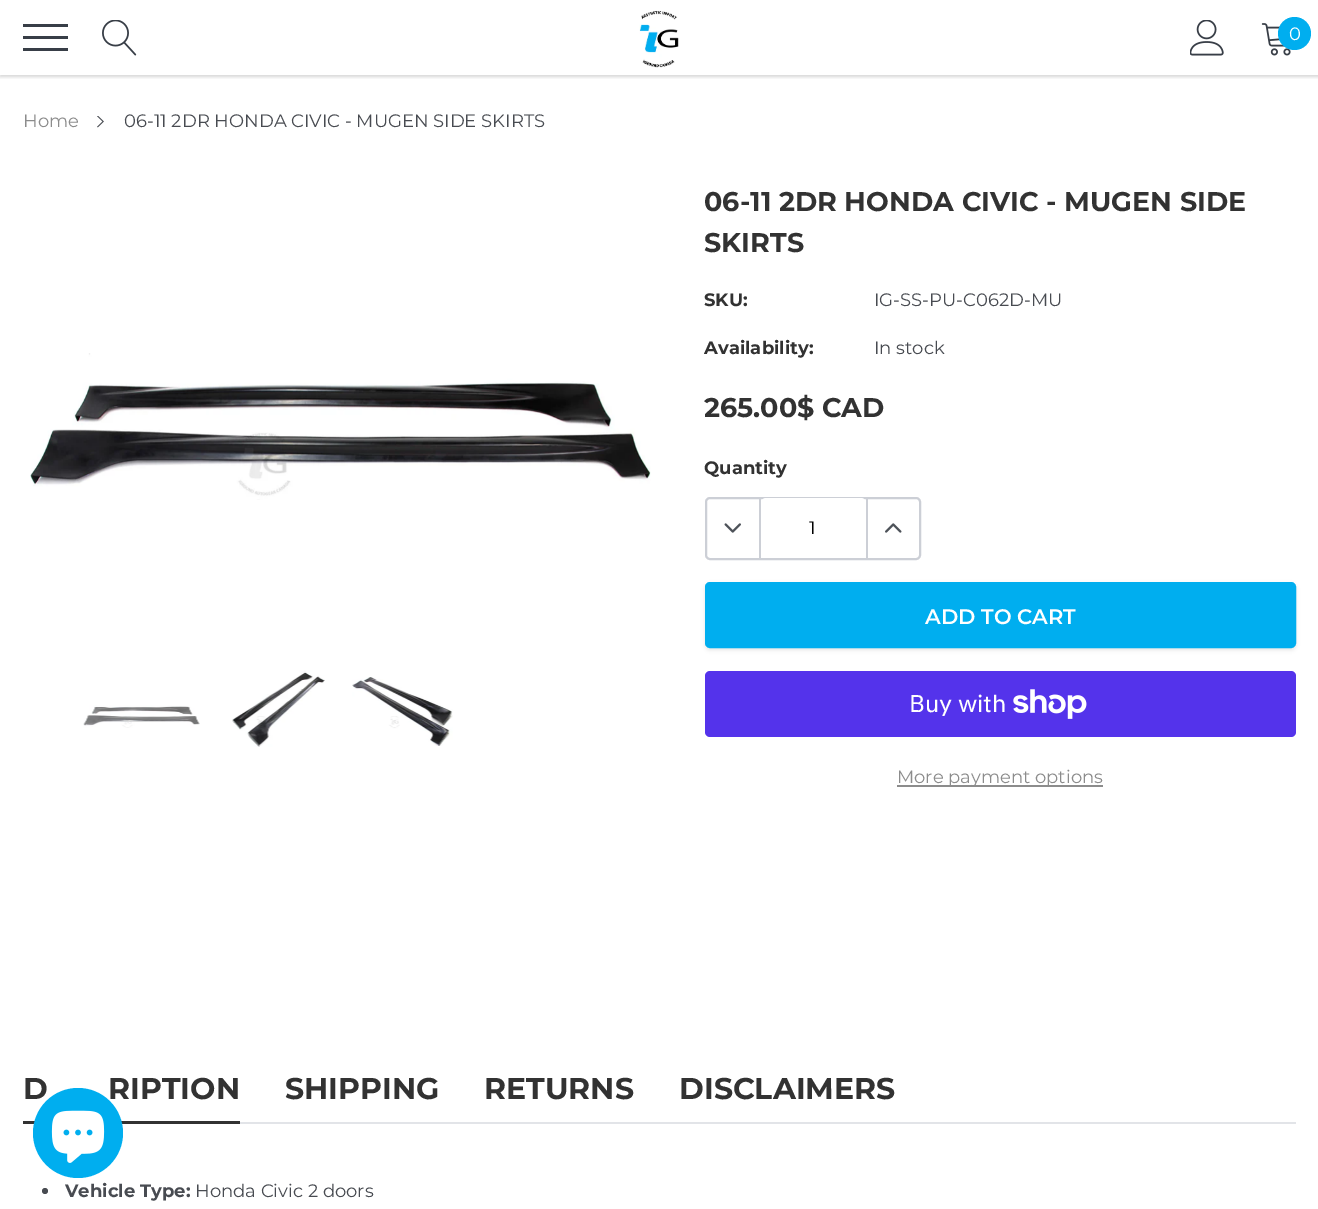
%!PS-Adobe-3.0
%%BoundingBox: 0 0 1318 1209
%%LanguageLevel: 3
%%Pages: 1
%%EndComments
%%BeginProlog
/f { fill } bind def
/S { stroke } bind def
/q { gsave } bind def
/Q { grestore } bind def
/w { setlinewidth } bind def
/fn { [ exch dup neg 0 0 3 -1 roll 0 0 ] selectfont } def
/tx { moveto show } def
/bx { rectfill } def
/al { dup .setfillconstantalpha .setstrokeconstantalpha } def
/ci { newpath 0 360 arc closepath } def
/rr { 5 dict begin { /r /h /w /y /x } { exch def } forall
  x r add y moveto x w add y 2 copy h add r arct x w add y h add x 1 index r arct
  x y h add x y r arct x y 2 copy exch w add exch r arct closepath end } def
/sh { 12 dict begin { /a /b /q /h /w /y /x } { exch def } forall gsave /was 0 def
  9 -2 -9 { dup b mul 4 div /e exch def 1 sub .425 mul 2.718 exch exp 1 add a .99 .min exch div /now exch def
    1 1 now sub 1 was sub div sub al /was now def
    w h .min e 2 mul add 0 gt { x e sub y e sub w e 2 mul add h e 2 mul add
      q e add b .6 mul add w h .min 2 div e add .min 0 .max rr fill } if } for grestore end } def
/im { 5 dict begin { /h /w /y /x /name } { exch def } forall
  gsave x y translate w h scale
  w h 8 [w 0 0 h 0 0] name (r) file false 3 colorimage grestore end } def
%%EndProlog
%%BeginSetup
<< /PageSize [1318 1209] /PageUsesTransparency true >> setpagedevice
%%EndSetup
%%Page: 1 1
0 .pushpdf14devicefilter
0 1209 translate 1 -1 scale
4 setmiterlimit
1 setgray
0 0 1318 1209 bx
q
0 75 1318 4 rectclip
0 setgray
0 2 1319 75 0 1.5 0.15 sh
Q
0.22 0.243 0.278 setrgbcolor
23 36 45 3 bx
23 24 45 3 bx
23 48 45 3 bx
(image0.raw) 102 20 35 36 im
(image1.raw) 639 10 40 58 im
(image2.raw) 1190 20 34 36 im
(image3.raw) 1261 23 30 33 im
0 0.682 0.937 setrgbcolor
1294.5 33.5 16.5 ci f
/Montserrat-Regular 18 fn
1 setgray
(0) 1289 40 tx
0.549 setgray
(Home) 23 127 tx
(image4.raw) 97 116 7 12 im
0.282 0.294 0.318 setrgbcolor
(06-11 2DR HONDA CIVIC - MUGEN SIDE SKIRTS) 124 127 tx
(image5.raw) 30 353 621 147 im
(image6.raw) 83 705 117 23 im
(image7.raw) 232 670 93 77 im
(image8.raw) 352 677 101 69 im
/Montserrat-Bold 27 fn
0.196 setgray
(06-11 2DR HONDA CIVIC - MUGEN SIDE) 704 211 tx
(SKIRTS) 704 252 tx
/Montserrat-Bold 18 fn
(SKU:) 704 306 tx
/Montserrat-Regular 18 fn
0.282 0.294 0.318 setrgbcolor
(IG-SS-PU-C062D-MU) 874 306 tx
/Montserrat-Bold 18 fn
0.196 setgray
(Availability:) 704 354 tx
/Montserrat-Regular 18 fn
0.282 0.294 0.318 setrgbcolor
(In stock) 874 354 tx
/Montserrat-Bold 27 fn
0.196 setgray
(265.00$ CAD) 704 417 tx
/Montserrat-Bold 18 fn
(Quantity) 704 474 tx
0.8 0.812 0.839 setrgbcolor
2 w
706 498 214 61 4 rr S
759 498 2 60 bx
(image9.raw) 724 523 17 10 im
1 setgray
761 498 105 60 5 rr f
/Montserrat-Regular 18 fn
0 setgray
(1) 809 534 tx
0.8 0.812 0.839 setrgbcolor
866 498 2 60 bx
(image10.raw) 885 523 17 10 im
0 setgray
705 584 591 66 5 2 0.1 sh
0 0.682 0.937 setrgbcolor
706 583 589 64 4 rr q f Q
S
/Montserrat-SemiBold 21 fn
1 setgray
(ADD TO CART) 925 624 tx
0.329 0.2 0.922 setrgbcolor
705 671 591 66 5 rr f
/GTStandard-Regular 24 fn
1 setgray
(Buy with) 909 712 tx
(image11.raw) 1013 689 74 30 im
0.549 setgray
897 785 206 2 bx
/Montserrat-Regular 18 fn
(More payment options) 897 783 tx
0.886 0.894 0.91 setrgbcolor
240 1122 1056 2 bx
/Montserrat-Bold 30 fn
0.196 setgray
(D) 23 1099 tx
(RIPTION) 108 1099 tx
23 1121 217 3 bx
(SHIPPING) 285 1099 tx
(RETURNS) 484 1099 tx
(DISCLAIMERS) 679 1099 tx
0.282 0.294 0.318 setrgbcolor
45 1191 3 ci f
/Montserrat-Bold 18 fn
(Vehicle Type:) 65 1197 tx
/Montserrat-Regular 18 fn
(Honda Civic 2 doors) 195 1197 tx
0 0.682 0.937 setrgbcolor
78 1133 45 ci f
(image12.raw) 51 1110 54 53 im
.poppdf14devicefilter showpage
%%EOF
